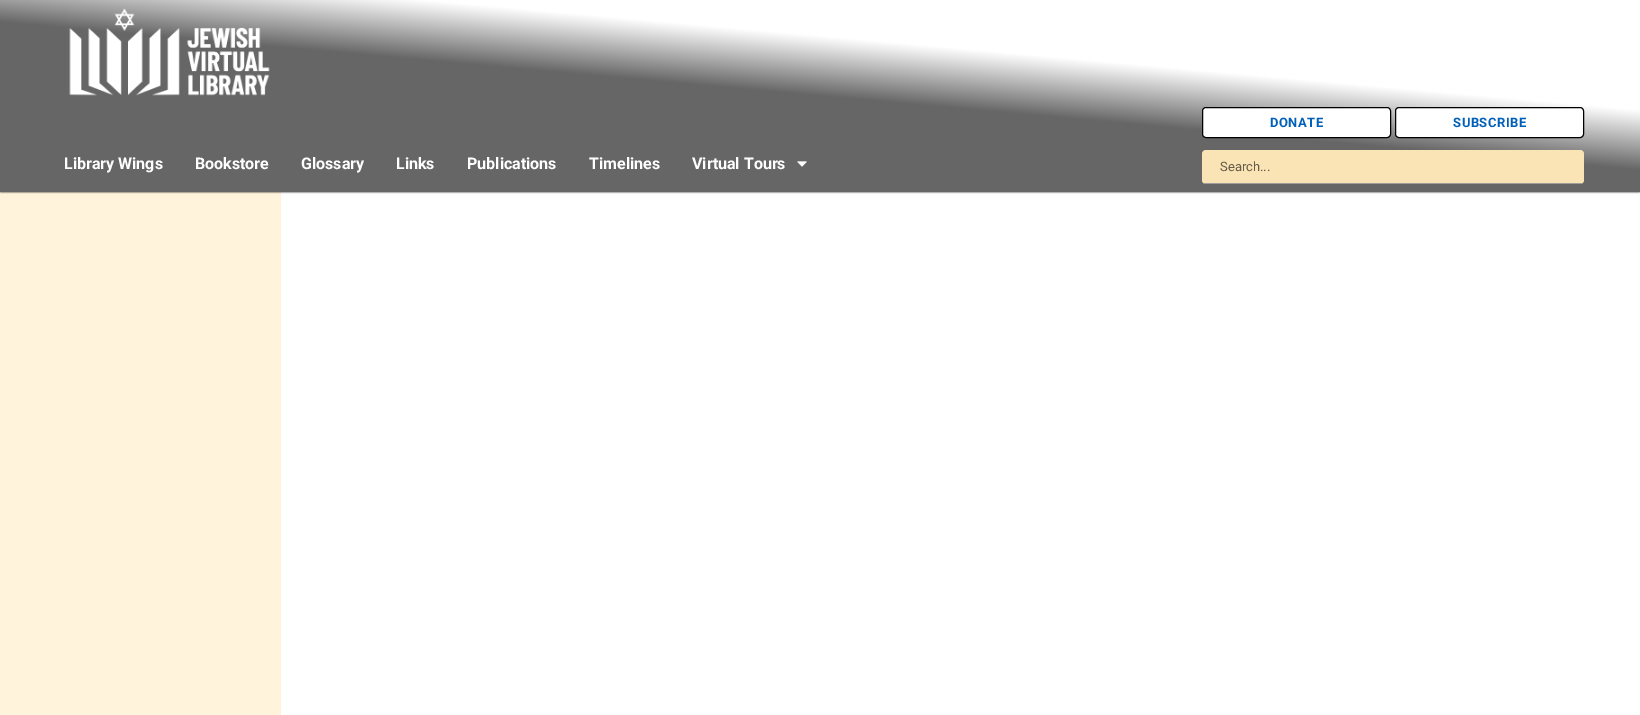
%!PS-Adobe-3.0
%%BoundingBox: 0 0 1640 715
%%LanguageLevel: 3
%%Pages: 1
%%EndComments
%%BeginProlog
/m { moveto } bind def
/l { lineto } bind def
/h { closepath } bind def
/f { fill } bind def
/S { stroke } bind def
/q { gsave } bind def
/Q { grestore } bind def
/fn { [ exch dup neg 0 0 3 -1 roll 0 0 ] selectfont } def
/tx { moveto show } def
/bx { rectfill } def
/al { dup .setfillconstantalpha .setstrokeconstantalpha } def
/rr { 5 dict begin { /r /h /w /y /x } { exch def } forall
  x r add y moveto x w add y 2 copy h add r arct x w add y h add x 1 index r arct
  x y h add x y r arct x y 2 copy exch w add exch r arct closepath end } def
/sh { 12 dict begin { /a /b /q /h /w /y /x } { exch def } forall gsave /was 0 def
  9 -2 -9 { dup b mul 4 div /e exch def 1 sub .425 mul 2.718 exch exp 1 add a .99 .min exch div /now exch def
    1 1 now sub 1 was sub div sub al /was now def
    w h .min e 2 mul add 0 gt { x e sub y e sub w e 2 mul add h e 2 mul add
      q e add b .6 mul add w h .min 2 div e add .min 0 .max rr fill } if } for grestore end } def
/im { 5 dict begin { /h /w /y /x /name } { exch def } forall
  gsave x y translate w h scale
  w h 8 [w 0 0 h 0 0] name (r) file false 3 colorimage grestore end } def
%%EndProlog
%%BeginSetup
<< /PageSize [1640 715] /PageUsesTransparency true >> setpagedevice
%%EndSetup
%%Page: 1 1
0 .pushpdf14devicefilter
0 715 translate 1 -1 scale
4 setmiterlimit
1 setgray
0 0 1640 715 bx
1 0.957 0.859 setrgbcolor
0 192 281 523 bx
0 setgray
0 1 1640 192 0 0.5 0.1 sh
1 2 1638 190 0 0.5 0.5 sh
0 1 1640 192 0 0.5 0.14 sh
q 0 0 m 1640 0 l 1640 192 l 0 192 l h clip newpath
<< /ShadingType 2 /ColorSpace /DeviceRGB /Coords [835 -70 805 262] /Extend [true true] /Function << /FunctionType 3 /Domain [0 1] /Functions [<< /FunctionType 2 /Domain [0 1] /C0 [1 1 1] /C1 [1 1 1] /N 1 >> << /FunctionType 2 /Domain [0 1] /C0 [1 1 1] /C1 [0.4 0.4 0.4] /N 1 >> << /FunctionType 2 /Domain [0 1] /C0 [0.4 0.4 0.4] /C1 [0.4 0.4 0.4] /N 1 >>] /Bounds [0.32 0.5] /Encode [0 1 0 1 0 1] >> >> shfill Q
(image0.raw) 69 8 201 88 im
/Roboto-Bold 16 fn
1 setgray
(Library Wings) 64 169 tx
(Bookstore) 195 169 tx
(Glossary) 301 169 tx
(Links) 396 169 tx
(Publications) 467 169 tx
(Timelines) 589 169 tx
(Virtual Tours) 692 169 tx
(image1.raw) 797 161 10 6 im
1202.5 107.5 188 30 3.5 rr q f Q
0 setgray
S
/Roboto-Bold 13 fn
0 0.373 0.722 setrgbcolor
1270 127 m 0.5 0 (DONATE) ashow
1 setgray
1395.5 107.5 188 30 3.5 rr q f Q
0 setgray
S
0 0.373 0.722 setrgbcolor
1453 127 m 0.5 0 (SUBSCRIBE) ashow
0.98 0.89 0.71 setrgbcolor
1202 150 382 34 4 rr f
0.62 setgray
1204 183 378 1 bx
/Roboto-Regular 13 fn
0.392 0.357 0.282 setrgbcolor
(Search...) 1220 171 tx
.poppdf14devicefilter showpage
%%EOF
